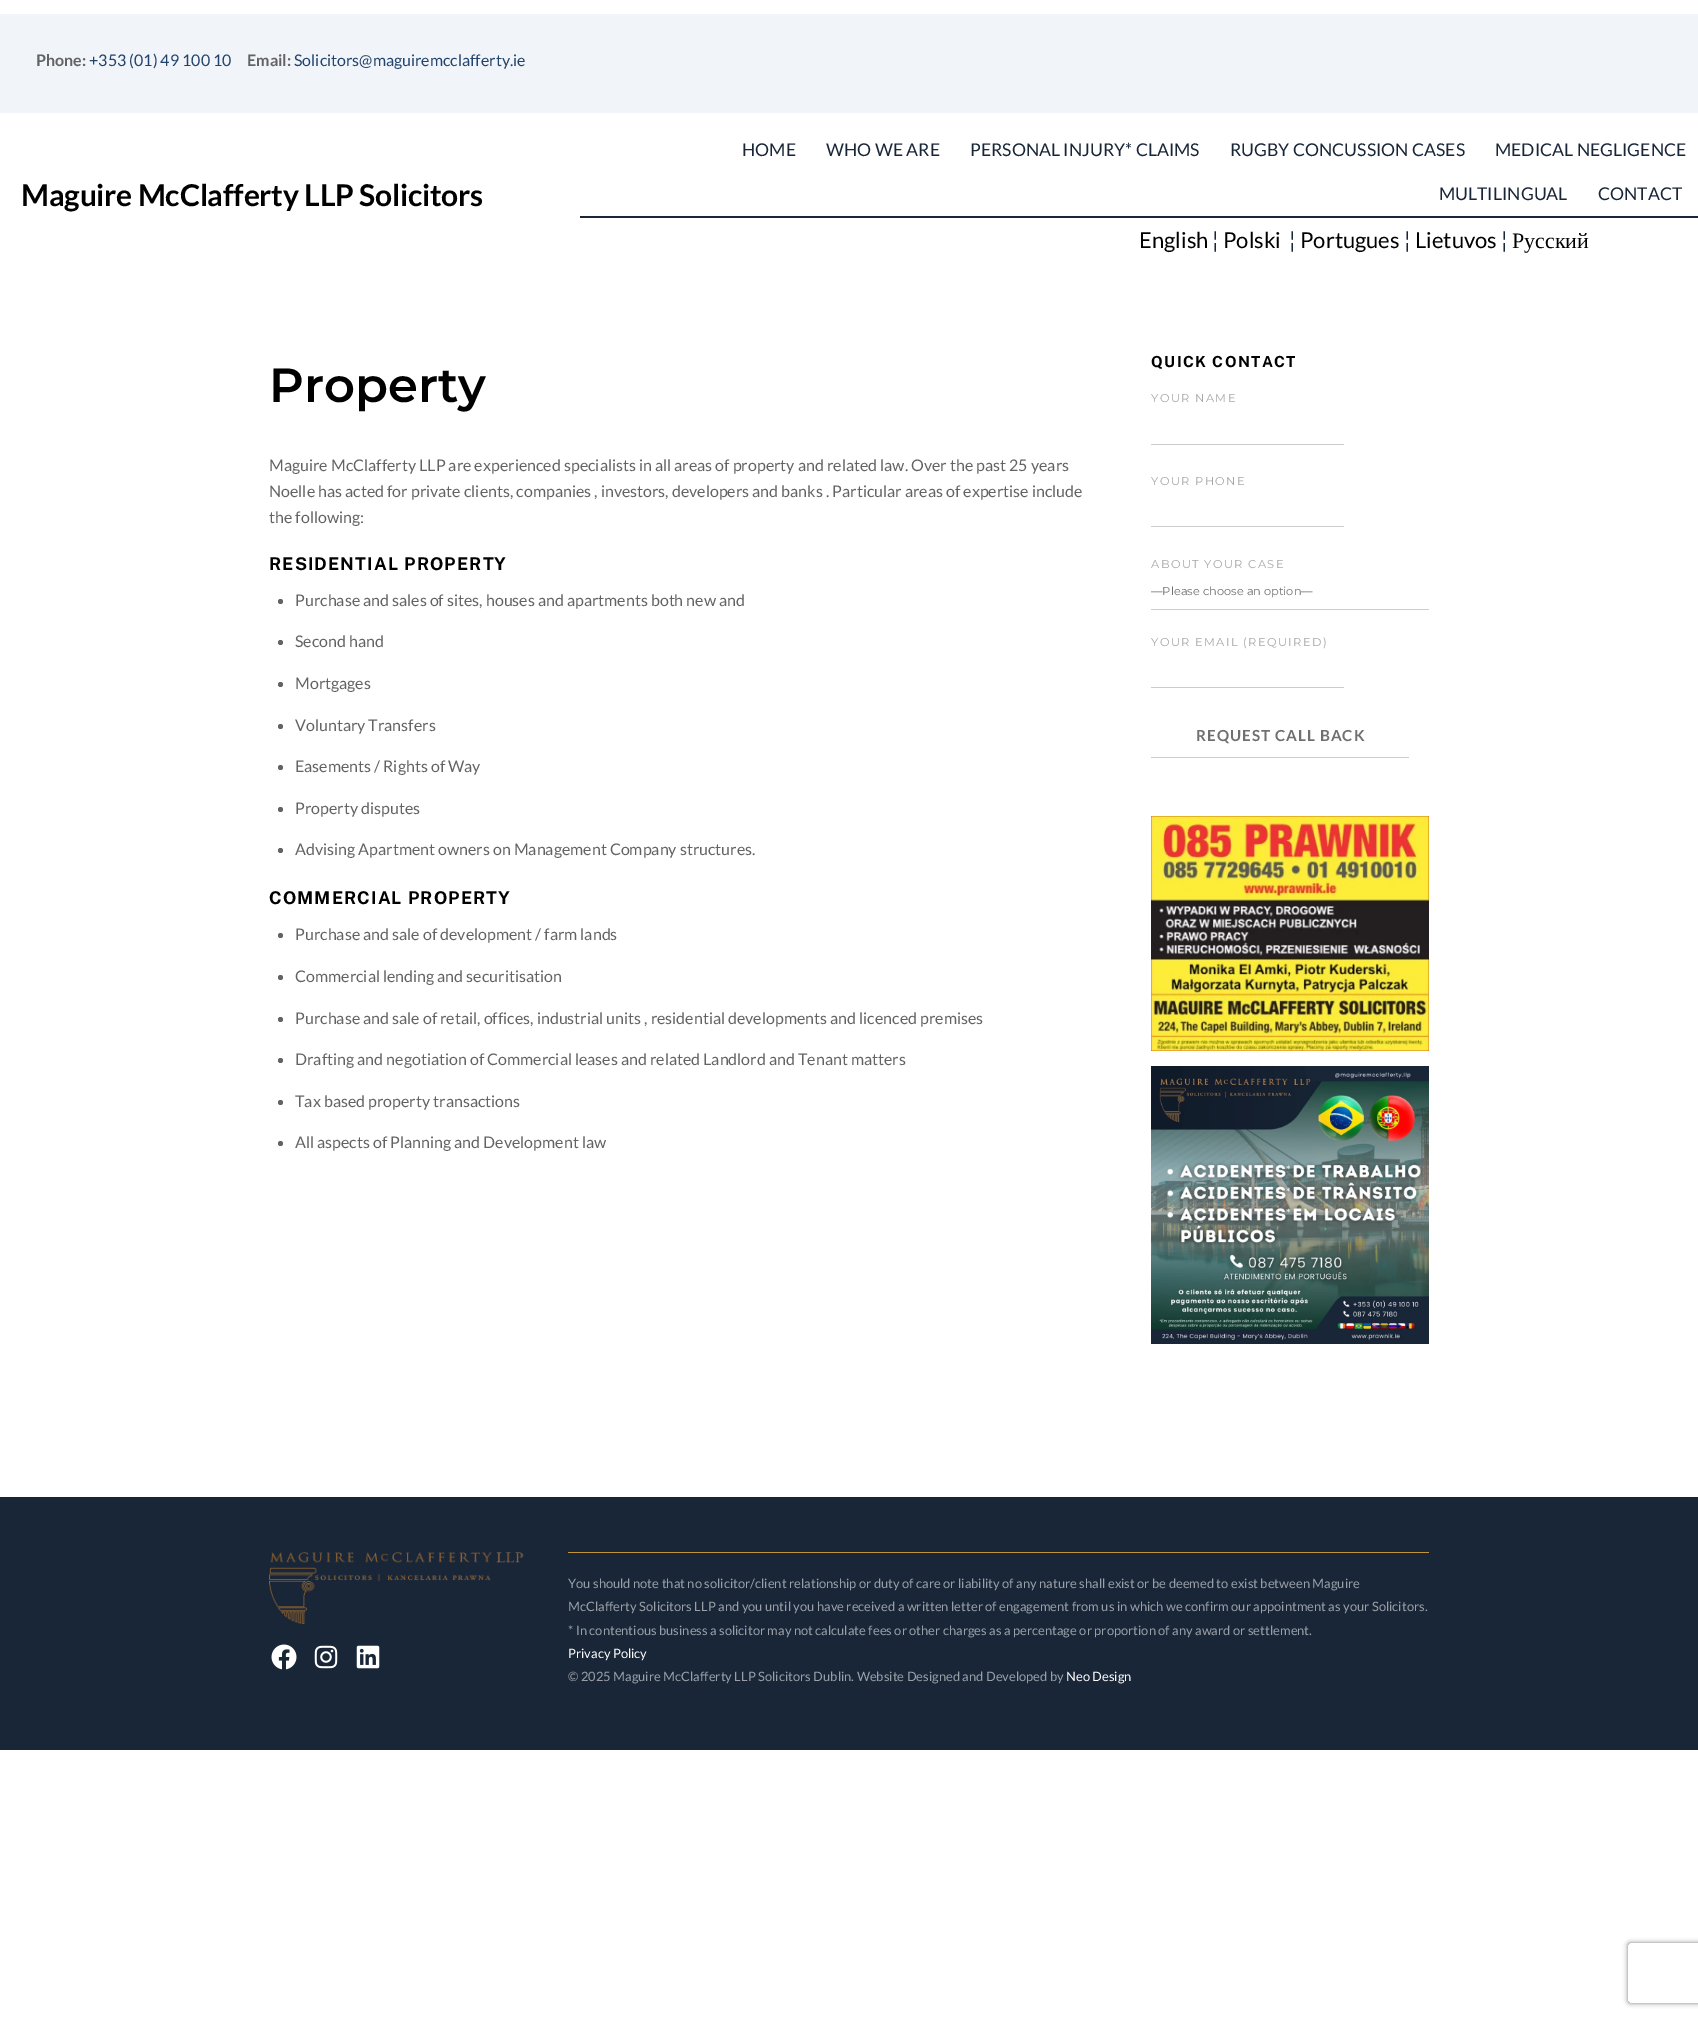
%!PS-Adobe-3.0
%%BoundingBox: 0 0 1698 2017
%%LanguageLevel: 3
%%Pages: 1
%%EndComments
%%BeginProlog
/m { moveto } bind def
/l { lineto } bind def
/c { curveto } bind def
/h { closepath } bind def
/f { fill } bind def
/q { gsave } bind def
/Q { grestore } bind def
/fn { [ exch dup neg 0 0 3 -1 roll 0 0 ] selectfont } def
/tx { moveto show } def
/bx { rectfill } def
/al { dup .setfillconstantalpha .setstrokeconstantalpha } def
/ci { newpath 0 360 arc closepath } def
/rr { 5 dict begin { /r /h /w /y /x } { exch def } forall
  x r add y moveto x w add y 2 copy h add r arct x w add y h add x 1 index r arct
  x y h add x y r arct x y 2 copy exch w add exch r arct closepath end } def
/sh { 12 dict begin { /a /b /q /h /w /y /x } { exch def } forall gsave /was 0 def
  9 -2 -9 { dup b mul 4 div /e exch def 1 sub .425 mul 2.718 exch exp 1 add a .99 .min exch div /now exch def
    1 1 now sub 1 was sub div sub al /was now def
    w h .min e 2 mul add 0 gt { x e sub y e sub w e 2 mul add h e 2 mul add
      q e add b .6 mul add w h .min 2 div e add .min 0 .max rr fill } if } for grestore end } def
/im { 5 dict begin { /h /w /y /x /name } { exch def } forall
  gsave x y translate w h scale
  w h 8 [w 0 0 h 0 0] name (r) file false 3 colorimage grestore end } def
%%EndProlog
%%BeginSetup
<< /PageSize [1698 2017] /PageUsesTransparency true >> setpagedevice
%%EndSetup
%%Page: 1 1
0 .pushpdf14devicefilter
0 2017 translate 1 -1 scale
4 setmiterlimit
1 setgray
0 0 1698 2017 bx
0.945 0.961 0.976 setrgbcolor
0 14 1698 99 bx
/Lato-Bold 16 fn
0.388 setgray
(Phone:) 36 66 tx
/Lato-Regular 16 fn
0.133 0.263 0.424 setrgbcolor
(+353 \(01\) 49 100 10) 89 66 tx
/Lato-Bold 16 fn
0.388 setgray
(Email:) 247 66 tx
/Lato-Regular 16 fn
0.133 0.263 0.424 setrgbcolor
(Solicitors@maguiremcclafferty.ie) 294 66 tx
/Lato-Bold 30 fn
0 setgray
21 206 m -0.2 0 (Maguire McClafferty LLP Solicitors) ashow
/Lato-Regular 17.6 fn
0.094 0.149 0.22 setrgbcolor
(HOME) 742 156 tx
(WHO WE ARE) 826 156 tx
(PERSONAL INJURY* CLAIMS) 970 156 tx
(RUGBY CONCUSSION CASES) 1230 156 tx
(MEDICAL NEGLIGENCE) 1495 156 tx
(MULTILINGUAL) 1439 200 tx
(CONTACT) 1598 200 tx
580 216 1118 2 bx
/Lato-Regular 22 fn
0 setgray
(English) 1139 248 tx
0.094 0.149 0.22 setrgbcolor
(¦) 1212 248 tx
0 setgray
(Polski) 1223 248 tx
0.094 0.149 0.22 setrgbcolor
(¦) 1289 248 tx
0 setgray
(Portugues) 1300 248 tx
0.094 0.149 0.22 setrgbcolor
(¦) 1404 248 tx
0 setgray
(Lietuvos) 1415 248 tx
0.094 0.149 0.22 setrgbcolor
(¦) 1501 248 tx
/LiberationSerif-Regular 22 fn
0 setgray
(Русский) 1512 248 tx
/Montserrat-SemiBold 48 fn
(Property) 269 402 tx
/Lato-Regular 16 fn
0.388 setgray
(Maguire McClafferty LLP are experienced specialists in all areas of property and related law. Over the past 25 years) 269 471 tx
(Noelle has acted for private clients, companies , investors, developers and banks . Particular areas of expertise include) 269 497 tx
(the following:) 269 523 tx
/PublicSans-Bold 17.6 fn
0 setgray
269 570 m 1.1 0 (RESIDENTIAL PROPERTY) ashow
0.388 setgray
280.5 601.5 2.5 ci f
/Lato-Regular 16 fn
(Purchase and sales of sites, houses and apartments both new and) 295 606 tx
280.5 642.5 2.5 ci f
(Second hand) 295 647 tx
280.5 684.5 2.5 ci f
(Mortgages) 295 689 tx
280.5 726.5 2.5 ci f
(Voluntary Transfers) 295 731 tx
280.5 767.5 2.5 ci f
(Easements / Rights of Way) 295 772 tx
280.5 809.5 2.5 ci f
(Property disputes) 295 814 tx
280.5 850.5 2.5 ci f
(Advising Apartment owners on Management Company structures.) 295 855 tx
/PublicSans-Bold 17.6 fn
0 setgray
269 904 m 1.1 0 (COMMERCIAL PROPERTY) ashow
0.388 setgray
280.5 935.5 2.5 ci f
/Lato-Regular 16 fn
(Purchase and sale of development / farm lands) 295 940 tx
280.5 977.5 2.5 ci f
(Commercial lending and securitisation) 295 982 tx
280.5 1019.5 2.5 ci f
(Purchase and sale of retail, offices, industrial units , residential developments and licenced premises) 295 1024 tx
280.5 1060.5 2.5 ci f
(Drafting and negotiation of Commercial leases and related Landlord and Tenant matters) 295 1065 tx
280.5 1102.5 2.5 ci f
(Tax based property transactions) 295 1107 tx
280.5 1143.5 2.5 ci f
(All aspects of Planning and Development law) 295 1148 tx
/PublicSans-Bold 15.25 fn
0 setgray
1151 367 m 1.4 0 (QUICK CONTACT) ashow
/Montserrat-Regular 11.4 fn
0.655 0.651 0.651 setrgbcolor
1151 402 m 1.4 0 (YOUR NAME) ashow
0.8 setgray
1151 444 193 1 bx
0.655 0.651 0.651 setrgbcolor
1151 485 m 1.4 0 (YOUR PHONE) ashow
0.8 setgray
1151 526 193 1 bx
0.655 0.651 0.651 setrgbcolor
1151 568 m 1.4 0 (ABOUT YOUR CASE) ashow
0.8 setgray
1151 609 278 1 bx
0.439 setgray
(—Please choose an option—) 1151 595 tx
0.655 0.651 0.651 setrgbcolor
1151 646 m 1.4 0 (YOUR EMAIL \(REQUIRED\)) ashow
0.8 setgray
1151 687 193 1 bx
1151 757 258 1 bx
/Lato-Bold 15.25 fn
0.439 setgray
1196 741 m 1 0 (REQUEST CALL BACK) ashow
(image0.raw) 1151 816 278 235 im
(image1.raw) 1151 1066 278 278 im
0.094 0.149 0.22 setrgbcolor
0 1498 1698 252 bx
0.09 0.141 0.208 setrgbcolor
0 1497 1698 1 bx
(image2.raw) 269 1552 255 72 im
(image3.raw) 271 1644 26 26 im
(image4.raw) 314 1645 24 24 im
(image5.raw) 356 1645 24 24 im
0.769 0.58 0.227 setrgbcolor
568 1552 861 1 bx
/Lato-Regular 12.92 fn
0.604 0.627 0.655 setrgbcolor
(You should note that no solicitor/client relationship or duty of care or liability of any nature shall exist or be deemed to exist between Maguire) 568 1588 tx
(McClafferty Solicitors LLP and you until you have received a written letter of engagement from us in which we confirm our appointment as your Solicitors.) 568 1611 tx
(* In contentious business a solicitor may not calculate fees or other charges as a percentage or proportion of any award or settlement.) 568 1635 tx
1 setgray
(Privacy Policy) 568 1658 tx
0.604 0.627 0.655 setrgbcolor
(© 2025 Maguire McClafferty LLP Solicitors Dublin. Website Designed and Developed by) 568 1681 tx
1 setgray
(Neo Design) 1066 1681 tx
q
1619 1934 m 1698 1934 l 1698 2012 l 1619 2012 l h 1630 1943 m 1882 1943 l 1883 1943 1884 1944 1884 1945 c 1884 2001 l 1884 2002 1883 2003 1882 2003 c 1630 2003 l 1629 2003 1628 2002 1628 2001 c 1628 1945 l 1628 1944 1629 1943 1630 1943 c h eoclip newpath
0.502 setgray
1628 1943 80 60 2 2.5 1 sh
Q
.poppdf14devicefilter showpage
%%EOF
